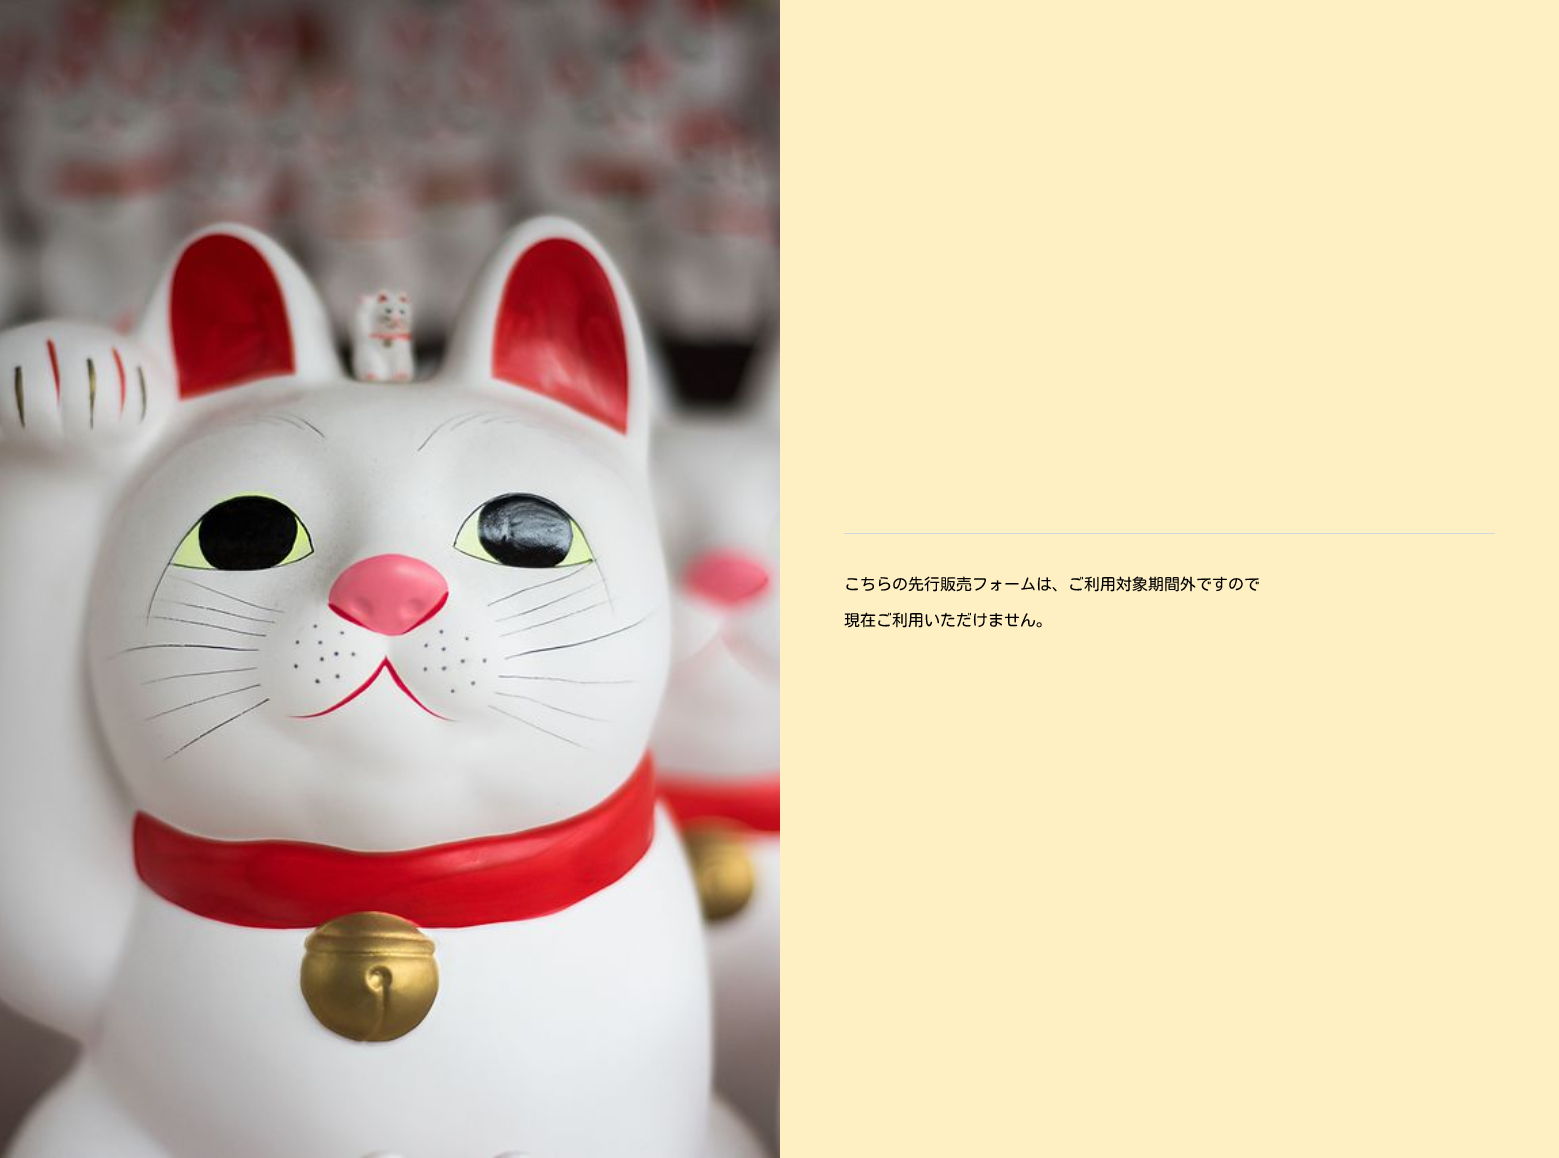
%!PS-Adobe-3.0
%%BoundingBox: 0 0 1559 1158
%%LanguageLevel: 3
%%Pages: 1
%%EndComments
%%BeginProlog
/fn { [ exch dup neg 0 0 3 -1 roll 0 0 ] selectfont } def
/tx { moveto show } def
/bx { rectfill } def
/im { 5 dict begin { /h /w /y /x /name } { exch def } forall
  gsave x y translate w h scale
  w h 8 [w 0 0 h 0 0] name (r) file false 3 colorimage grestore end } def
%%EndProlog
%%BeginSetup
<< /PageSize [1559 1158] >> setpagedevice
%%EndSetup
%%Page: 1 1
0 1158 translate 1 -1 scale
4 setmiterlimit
1 0.941 0.765 setrgbcolor
0 0 1559 1158 bx
(image0.raw) 0 0 780 1158 im
0.812 0.847 0.863 setrgbcolor
844 533 651 1 bx
/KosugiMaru-Regular 16 fn
0 setgray
(こちらの先行販売フォームは、ご利用対象期間外ですので) 844 590 tx
(現在ご利用いただけません。) 844 626 tx
showpage
%%EOF
